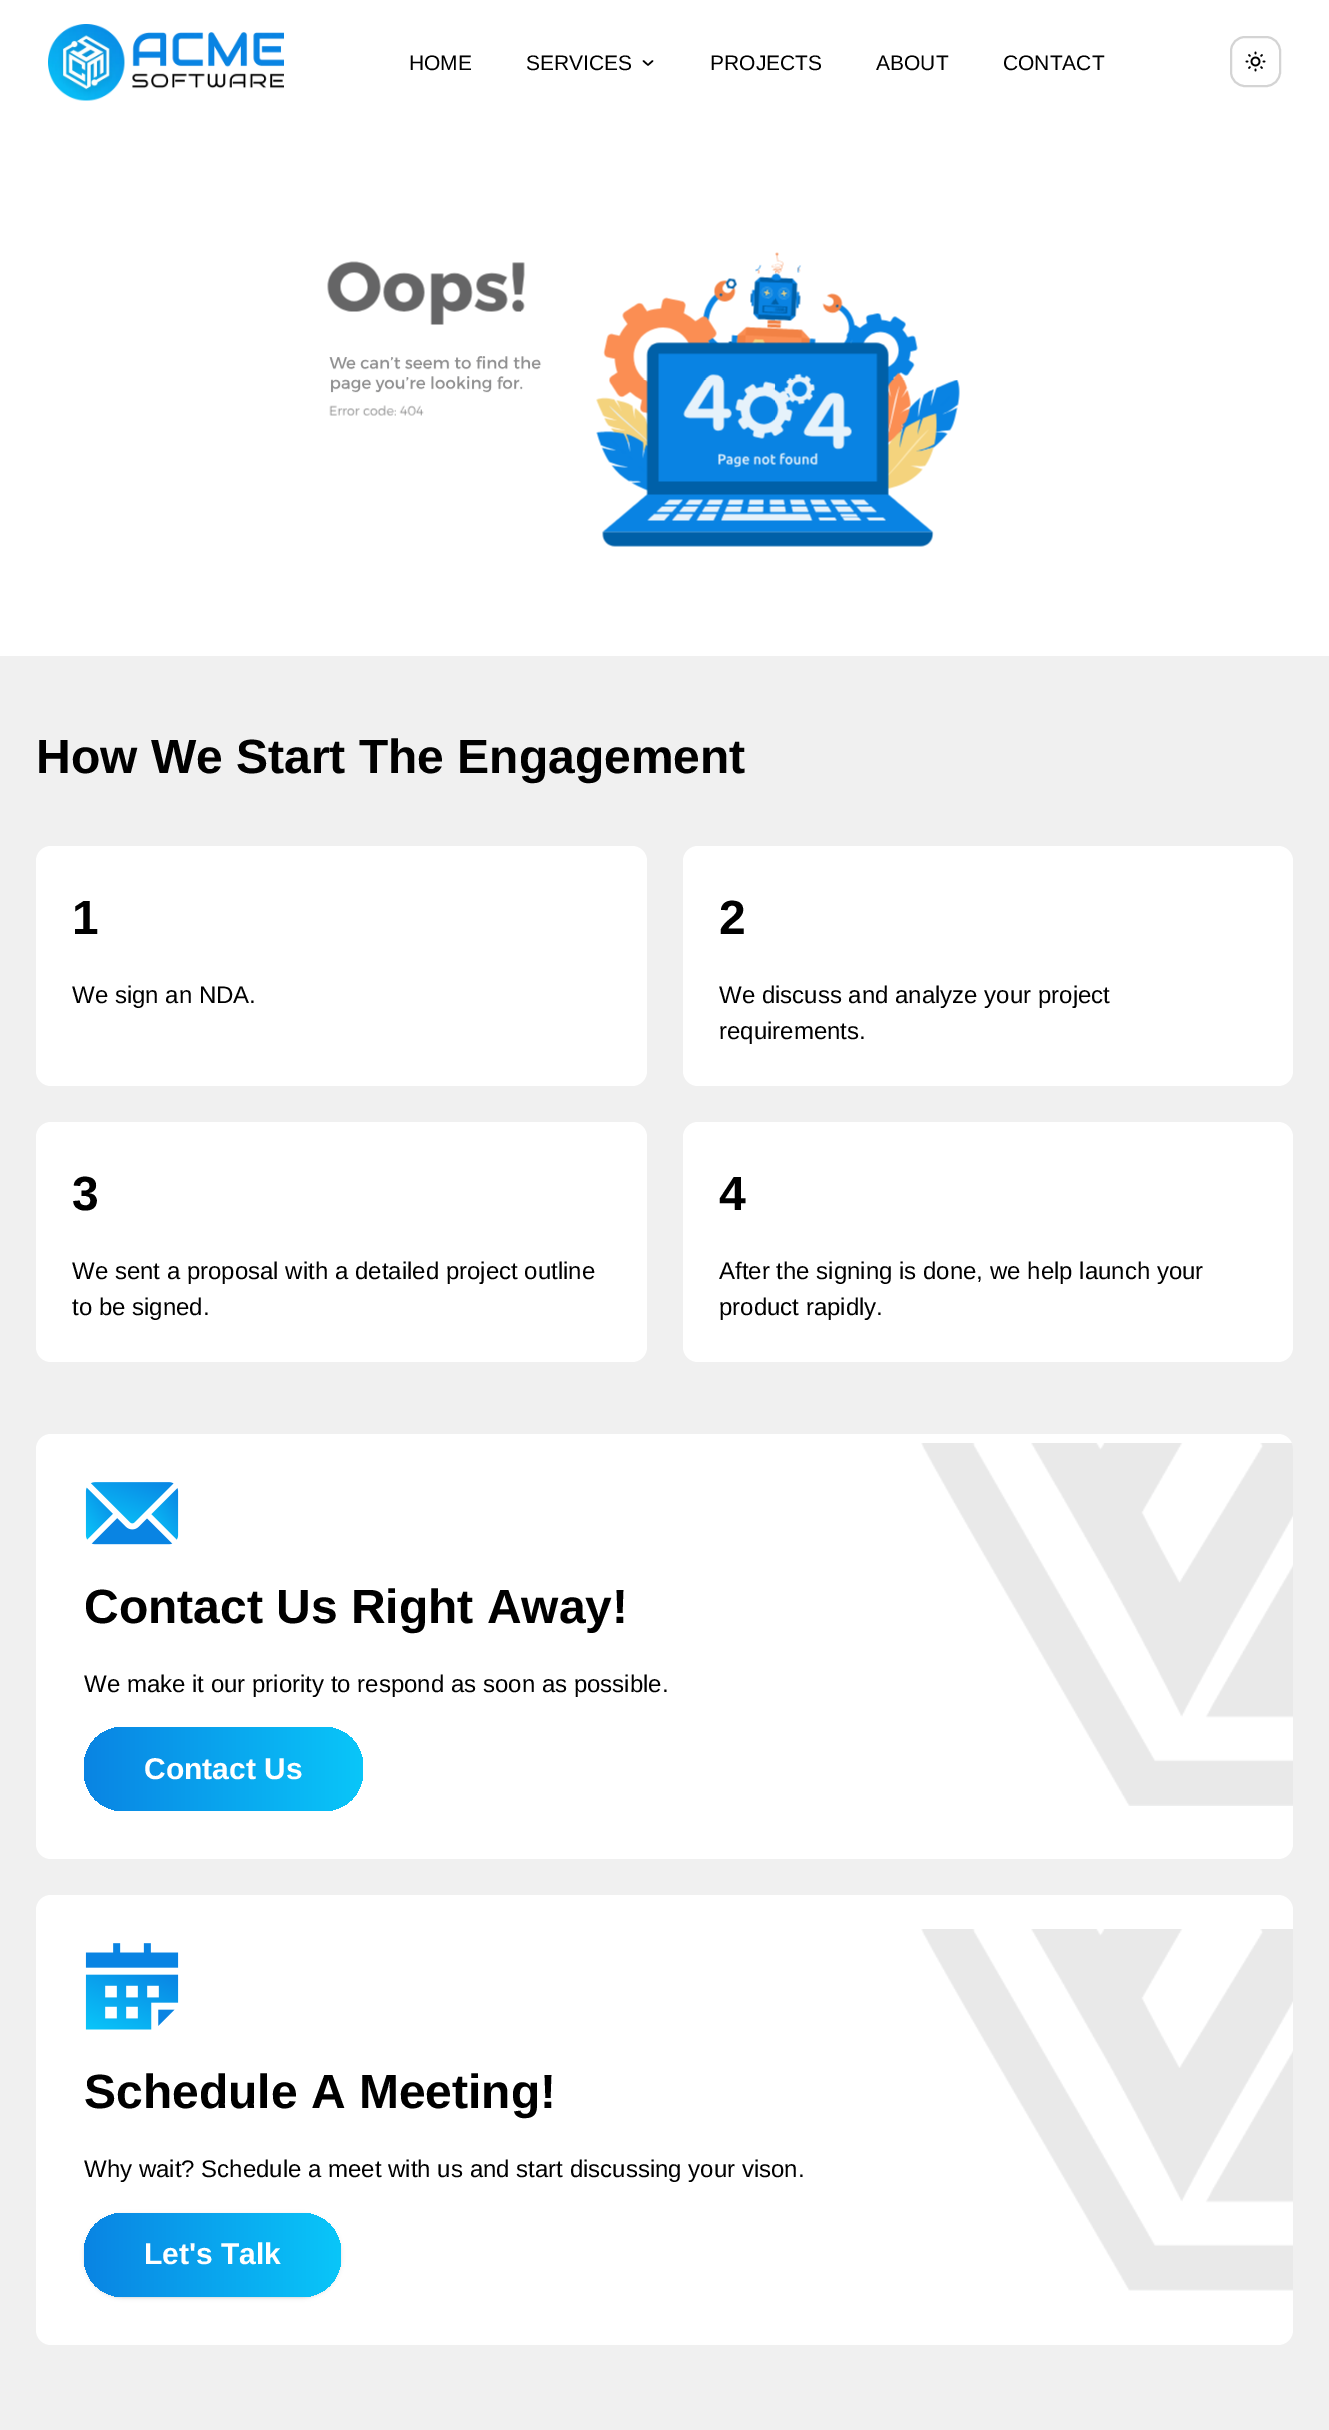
%!PS-Adobe-3.0
%%BoundingBox: 0 0 1329 2430
%%LanguageLevel: 3
%%Pages: 1
%%EndComments
%%BeginProlog
/m { moveto } bind def
/l { lineto } bind def
/f { fill } bind def
/S { stroke } bind def
/q { gsave } bind def
/Q { grestore } bind def
/w { setlinewidth } bind def
/fn { [ exch dup neg 0 0 3 -1 roll 0 0 ] selectfont } def
/tx { moveto show } def
/bx { rectfill } def
/al { dup .setfillconstantalpha .setstrokeconstantalpha } def
/rr { 5 dict begin { /r /h /w /y /x } { exch def } forall
  x r add y moveto x w add y 2 copy h add r arct x w add y h add x 1 index r arct
  x y h add x y r arct x y 2 copy exch w add exch r arct closepath end } def
/sh { 12 dict begin { /a /b /q /h /w /y /x } { exch def } forall gsave /was 0 def
  9 -2 -9 { dup b mul 4 div /e exch def 1 sub .425 mul 2.718 exch exp 1 add a .99 .min exch div /now exch def
    1 1 now sub 1 was sub div sub al /was now def
    w h .min e 2 mul add 0 gt { x e sub y e sub w e 2 mul add h e 2 mul add
      q e add b .6 mul add w h .min 2 div e add .min 0 .max rr fill } if } for grestore end } def
/im { 5 dict begin { /h /w /y /x /name } { exch def } forall
  gsave x y translate w h scale
  w h 8 [w 0 0 h 0 0] name (r) file false 3 colorimage grestore end } def
%%EndProlog
%%BeginSetup
<< /PageSize [1329 2430] /PageUsesTransparency true >> setpagedevice
%%EndSetup
%%Page: 1 1
0 .pushpdf14devicefilter
0 2430 translate 1 -1 scale
4 setmiterlimit
1 setgray
0 0 1329 2430 bx
(image0.raw) 48 24 236 77 im
/LiberationSans-Regular 21 fn
0 setgray
(HOME) 409 70 tx
(SERVICES) 526 70 tx
1.5 w
1 setlinecap
1 setlinejoin
643.5 61 m 648 65 l 652.5 61 l S
(PROJECTS) 710 70 tx
(ABOUT) 876 70 tx
(CONTACT) 1003 70 tx
0.831 setgray
2 w
0 setlinecap
0 setlinejoin
1231 37 49 49 14 rr S
(image1.raw) 1245 51 21 21 im
(image2.raw) 327 252 633 295 im
0.941 setgray
0 656 1329 1774 bx
/LiberationSans-Bold 48 fn
0 setgray
(How We Start The Engagement) 36 773 tx
1 setgray
36 846 611 240 15 rr f
0 setgray
(1) 72 934 tx
/LiberationSans-Regular 24 fn
(We sign an NDA.) 72 1003 tx
1 setgray
683 846 610 240 15 rr f
/LiberationSans-Bold 48 fn
0 setgray
(2) 719 934 tx
/LiberationSans-Regular 24 fn
(We discuss and analyze your project) 719 1003 tx
(requirements.) 719 1039 tx
1 setgray
36 1122 611 240 15 rr f
/LiberationSans-Bold 48 fn
0 setgray
(3) 72 1210 tx
/LiberationSans-Regular 24 fn
(We sent a proposal with a detailed project outline) 72 1279 tx
(to be signed.) 72 1315 tx
1 setgray
683 1122 610 240 15 rr f
/LiberationSans-Bold 48 fn
0 setgray
(4) 719 1210 tx
/LiberationSans-Regular 24 fn
(After the signing is done, we help launch your) 719 1279 tx
(product rapidly.) 719 1315 tx
1 setgray
36 1434 1257 425 15 rr f
(image3.raw) 85 1482 94 63 im
/LiberationSans-Bold 48 fn
0 setgray
(Contact Us Right Away!) 84 1623 tx
/LiberationSans-Regular 24 fn
(We make it our priority to respond as soon as possible.) 84 1692 tx
q 84 1727 279 84 39 rr clip newpath
<< /ShadingType 2 /ColorSpace /DeviceRGB /Coords [84 1769 363 1769] /Extend [true true] /Function << /FunctionType 2 /Domain [0 1] /C0 [0.035 0.518 0.89] /C1 [0.035 0.776 0.976] /N 1 >> >> shfill Q
/LiberationSans-Bold 30 fn
1 setgray
(Contact Us) 144 1779 tx
(image4.raw) 921 1443 372 363 im
36 1895 1257 450 15 rr f
(image5.raw) 85 1943 94 87 im
/LiberationSans-Bold 48 fn
0 setgray
(Schedule A Meeting!) 84 2108 tx
/LiberationSans-Regular 24 fn
(Why wait? Schedule a meet with us and start discussing your vison.) 84 2177 tx
86 2216 253 81 38 1.5 0.1 sh
84 2214 257 84 39 2 0.1 sh
q 84 2213 257 84 39 rr clip newpath
<< /ShadingType 2 /ColorSpace /DeviceRGB /Coords [84 2255 341 2255] /Extend [true true] /Function << /FunctionType 2 /Domain [0 1] /C0 [0.035 0.518 0.89] /C1 [0.035 0.776 0.976] /N 1 >> >> shfill Q
/LiberationSans-Bold 30 fn
1 setgray
(Let's Talk) 144 2264 tx
(image6.raw) 921 1929 372 362 im
.poppdf14devicefilter showpage
%%EOF
